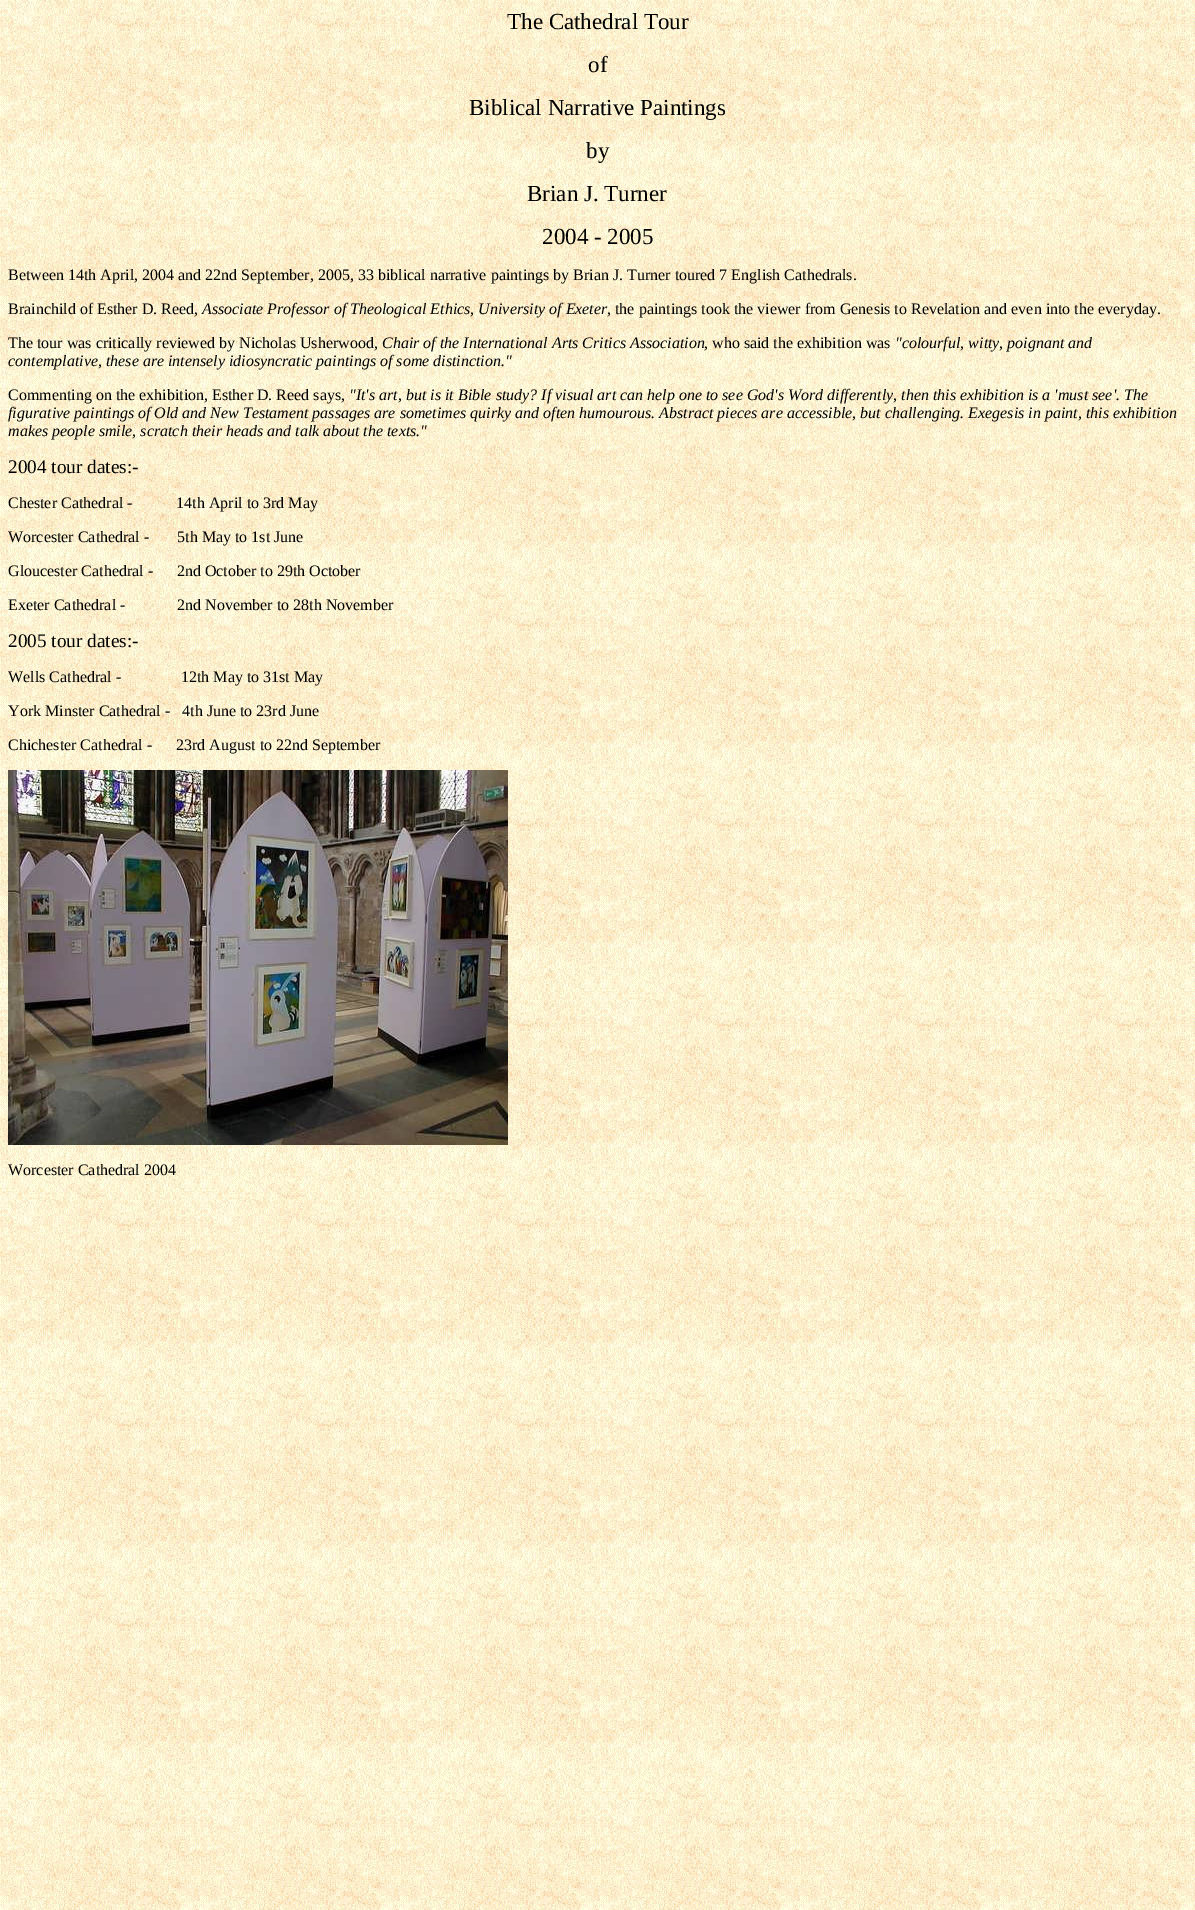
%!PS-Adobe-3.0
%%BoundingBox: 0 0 1195 1910
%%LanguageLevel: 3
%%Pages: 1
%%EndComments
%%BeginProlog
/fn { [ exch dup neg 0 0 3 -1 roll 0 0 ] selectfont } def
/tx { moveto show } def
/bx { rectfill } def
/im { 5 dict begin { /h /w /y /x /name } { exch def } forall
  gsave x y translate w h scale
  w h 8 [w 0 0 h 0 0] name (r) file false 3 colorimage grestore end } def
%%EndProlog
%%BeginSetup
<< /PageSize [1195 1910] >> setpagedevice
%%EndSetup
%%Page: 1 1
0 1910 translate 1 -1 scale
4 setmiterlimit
1 setgray
0 0 1195 1910 bx
(image0.raw) 0 0 1195 1910 im
/LiberationSerif-Regular 23 fn
0 setgray
(The Cathedral Tour) 507 29 tx
(of) 588 72 tx
(Biblical Narrative Paintings) 469 115 tx
(by) 586 158 tx
(Brian J. Turner) 527 201 tx
(2004 - 2005) 542 244 tx
/LiberationSerif-Regular 16 fn
(Between 14th April, 2004 and 22nd September, 2005, 33 biblical narrative paintings by Brian J. Turner toured 7 English Cathedrals.) 8 280 tx
(Brainchild of Esther D. Reed,) 8 314 tx
/LiberationSerif-Italic 16 fn
(Associate Professor of Theological Ethics, University of Exeter) 202 314 tx
/LiberationSerif-Regular 16 fn
(, the paintings took the viewer from Genesis to Revelation and even into the everyday.) 607 314 tx
(The tour was critically reviewed by Nicholas Usherwood,) 8 348 tx
/LiberationSerif-Italic 16 fn
(Chair of the International Arts Critics Association) 382 348 tx
/LiberationSerif-Regular 16 fn
(, who said the exhibition was) 704 348 tx
/LiberationSerif-Italic 16 fn
("colourful, witty, poignant and) 895 348 tx
(contemplative, these are intensely idiosyncratic paintings of some distinction.") 8 366 tx
/LiberationSerif-Regular 16 fn
(Commenting on the exhibition, Esther D. Reed says,) 8 400 tx
/LiberationSerif-Italic 16 fn
("It's art, but is it Bible study? If visual art can help one to see God's Word differently, then this exhibition is a 'must see'. The) 349 400 tx
(figurative paintings of Old and New Testament passages are sometimes quirky and often humourous. Abstract pieces are accessible, but challenging. Exegesis in paint, this exhibition) 8 418 tx
(makes people smile, scratch their heads and talk about the texts.") 8 436 tx
/LiberationSerif-Regular 19.25 fn
(2004 tour dates:-) 8 473 tx
/LiberationSerif-Regular 16 fn
(Chester Cathedral -           14th April to 3rd May) 8 508 tx
(Worcester Cathedral -       5th May to 1st June) 8 542 tx
(Gloucester Cathedral -      2nd October to 29th October) 8 576 tx
(Exeter Cathedral -             2nd November to 28th November) 8 610 tx
/LiberationSerif-Regular 19.25 fn
(2005 tour dates:-) 8 647 tx
/LiberationSerif-Regular 16 fn
(Wells Cathedral -               12th May to 31st May) 8 682 tx
(York Minster Cathedral -   4th June to 23rd June) 8 716 tx
(Chichester Cathedral -      23rd August to 22nd September) 8 750 tx
(image1.raw) 8 770 500 375 im
(Worcester Cathedral 2004) 8 1175 tx
showpage
%%EOF
